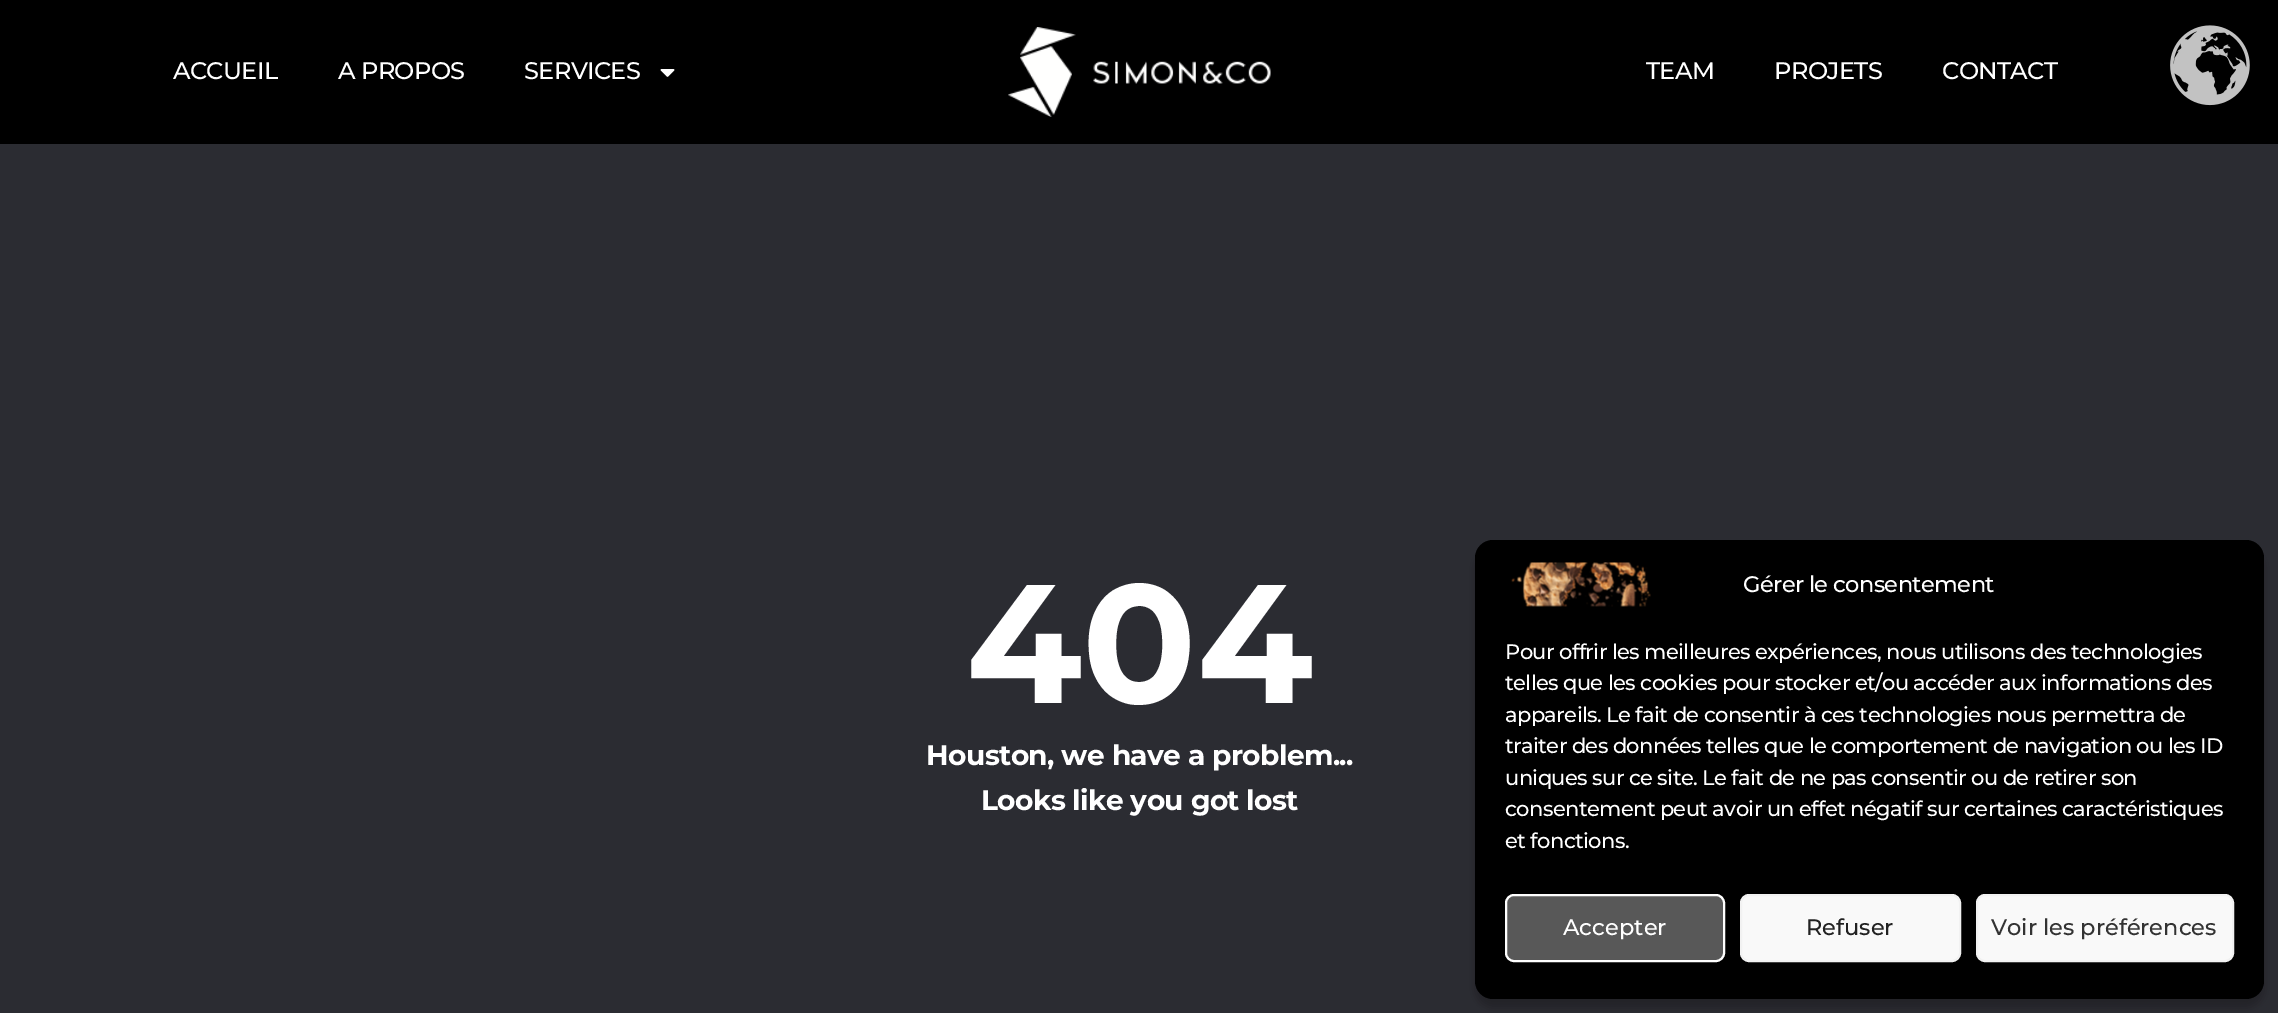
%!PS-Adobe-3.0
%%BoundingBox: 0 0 2278 1013
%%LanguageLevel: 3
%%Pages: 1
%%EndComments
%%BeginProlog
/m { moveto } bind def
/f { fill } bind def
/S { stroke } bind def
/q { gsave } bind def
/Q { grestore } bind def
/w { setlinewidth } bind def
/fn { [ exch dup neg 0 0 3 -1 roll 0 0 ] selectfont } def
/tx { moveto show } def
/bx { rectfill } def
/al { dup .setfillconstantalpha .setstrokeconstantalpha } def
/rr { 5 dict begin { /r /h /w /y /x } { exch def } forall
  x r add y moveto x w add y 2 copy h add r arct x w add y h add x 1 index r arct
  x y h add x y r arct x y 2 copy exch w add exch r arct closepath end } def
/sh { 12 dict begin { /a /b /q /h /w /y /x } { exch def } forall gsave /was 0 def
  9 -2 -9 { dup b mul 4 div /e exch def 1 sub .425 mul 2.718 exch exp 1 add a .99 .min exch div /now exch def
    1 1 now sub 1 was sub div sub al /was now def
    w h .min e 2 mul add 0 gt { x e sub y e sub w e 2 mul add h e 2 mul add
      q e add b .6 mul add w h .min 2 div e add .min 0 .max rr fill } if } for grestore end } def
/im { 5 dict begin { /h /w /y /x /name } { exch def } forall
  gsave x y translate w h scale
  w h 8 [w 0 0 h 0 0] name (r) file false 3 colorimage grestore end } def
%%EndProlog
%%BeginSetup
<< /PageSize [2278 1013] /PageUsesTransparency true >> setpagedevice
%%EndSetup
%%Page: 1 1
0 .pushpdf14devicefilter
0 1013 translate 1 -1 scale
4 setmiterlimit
0.169 0.173 0.196 setrgbcolor
0 0 2278 1013 bx
0 setgray
0 0 2278 144 bx
/Montserrat-Medium 24 fn
1 setgray
173 79 m -0.6 0 (ACCUEIL) ashow
338 79 m -0.6 0 (A PROPOS) ashow
524 79 m -0.6 0 (SERVICES) ashow
(image0.raw) 660 69 15 8 im
(image1.raw) 1008 27 263 90 im
1646 79 m -0.6 0 (TEAM) ashow
1774 79 m -0.6 0 (PROJETS) ashow
1942 79 m -0.6 0 (CONTACT) ashow
(image2.raw) 2170 25 80 81 im
/Montserrat-Bold 169 fn
(404) 966 703 tx
/Montserrat-Bold 28.1 fn
926 765 m -0.6 0 (Houston, we have a problem...) ashow
981 810 m -0.6 0 (Looks like you got lost) ashow
0 setgray
1475 549 789 459 18 4.5 0.23 sh
1475 540 789 459 18 rr f
(image3.raw) 1511 562 140 45 im
/Montserrat-Medium 22.5 fn
1 setgray
1743 592 m -0.6 0 (Gérer le consentement) ashow
/Montserrat-Medium 21 fn
1505 659 m -0.6 0 (Pour offrir les meilleures expériences, nous utilisons des technologies) ashow
1505 690 m -0.6 0 (telles que les cookies pour stocker et/ou accéder aux informations des) ashow
1505 722 m -0.6 0 (appareils. Le fait de consentir à ces technologies nous permettra de) ashow
1505 753 m -0.6 0 (traiter des données telles que le comportement de navigation ou les ID) ashow
1505 785 m -0.6 0 (uniques sur ce site. Le fait de ne pas consentir ou de retirer son) ashow
1505 816 m -0.6 0 (consentement peut avoir un effet négatif sur certaines caractéristiques) ashow
1505 848 m -0.6 0 (et fonctions.) ashow
0.345 setgray
1506 895 218 66 8 rr q f Q
1 setgray
2 w
S
/Montserrat-Medium 22.5 fn
(Accepter) 1563 935 tx
0.976 setgray
1741 895 219 66 8 rr q f Q
0.949 setgray
S
0.133 setgray
(Refuser) 1806 935 tx
0.976 setgray
1977 895 256 66 8 rr q f Q
0.949 setgray
S
0.2 setgray
(Voir les préférences) 1991 935 tx
.poppdf14devicefilter showpage
%%EOF
